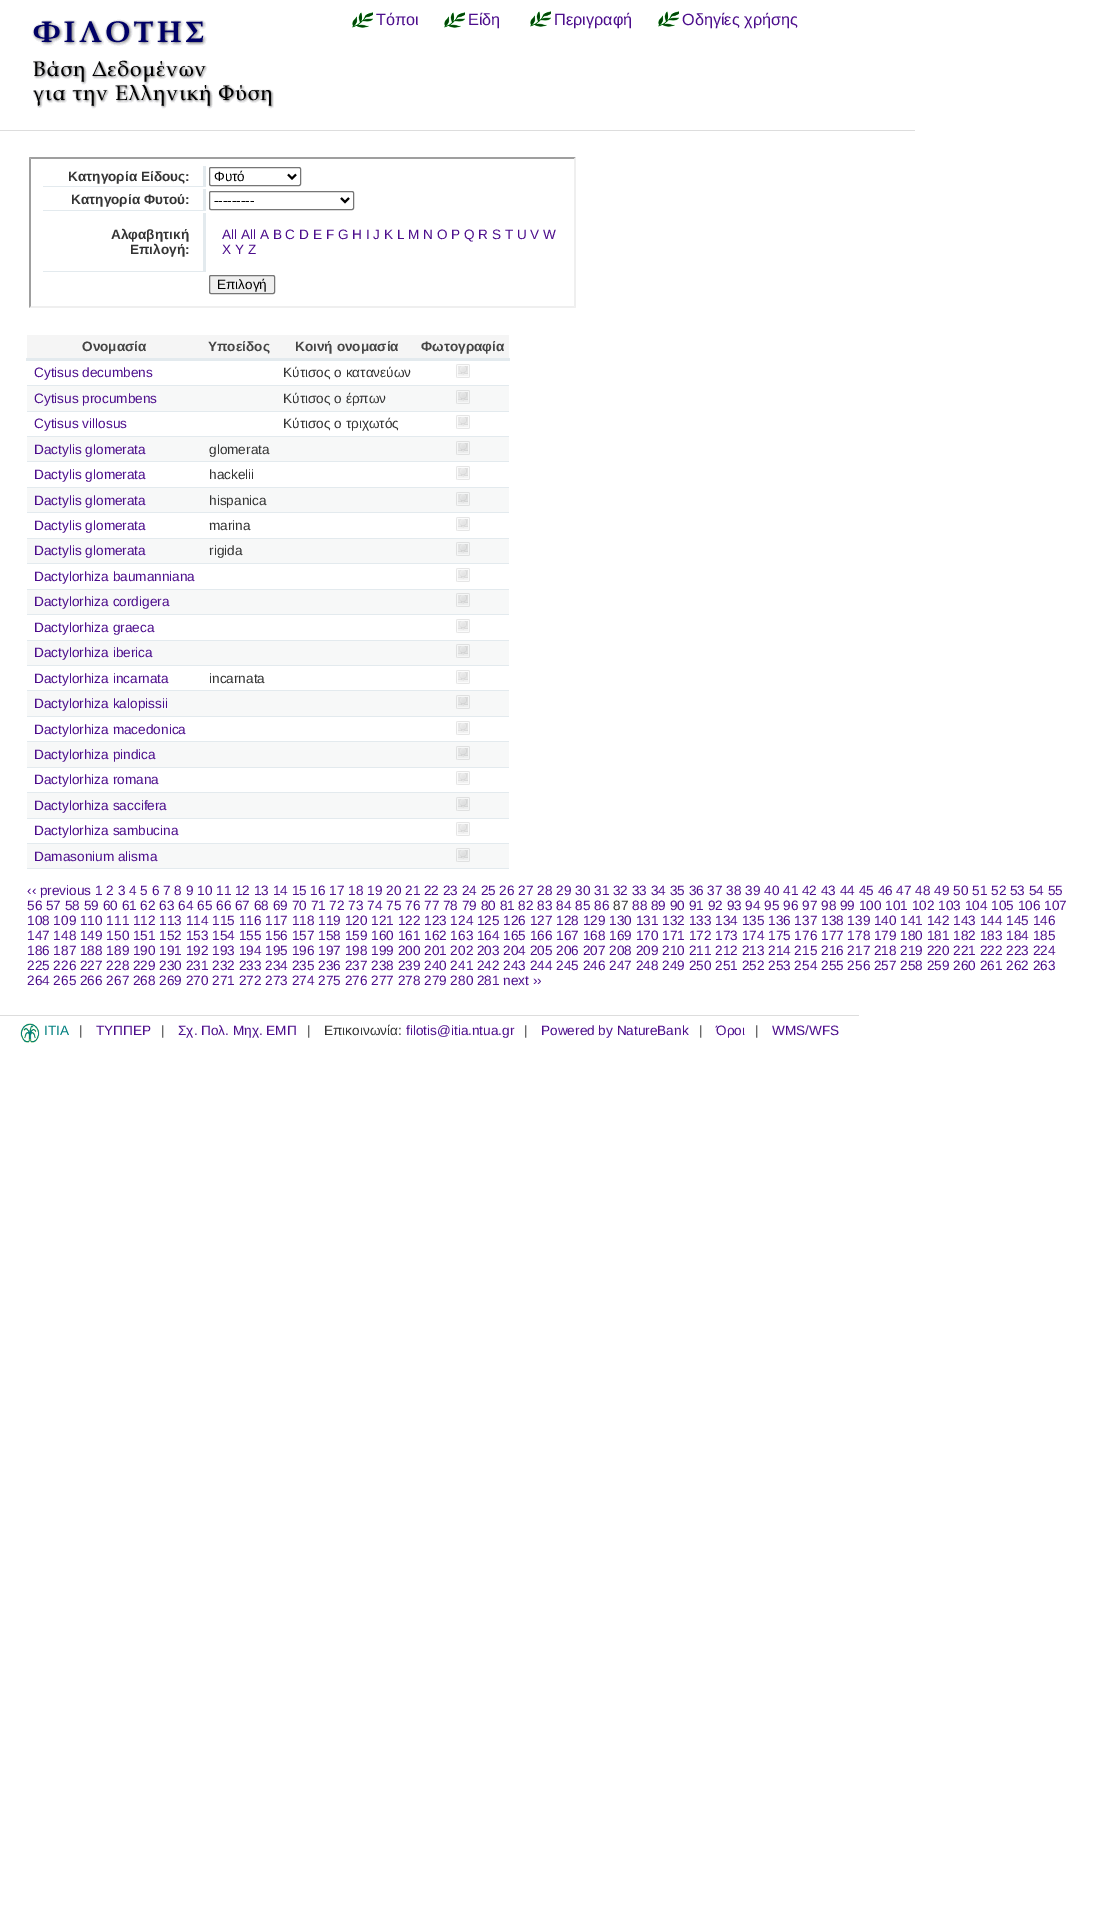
%!PS-Adobe-3.0
%%BoundingBox: 0 0 1110 1912
%%LanguageLevel: 3
%%Pages: 1
%%EndComments
%%BeginProlog
/m { moveto } bind def
/l { lineto } bind def
/h { closepath } bind def
/f { fill } bind def
/S { stroke } bind def
/q { gsave } bind def
/Q { grestore } bind def
/w { setlinewidth } bind def
/fn { [ exch dup neg 0 0 3 -1 roll 0 0 ] selectfont } def
/tx { moveto show } def
/bx { rectfill } def
/rr { 5 dict begin { /r /h /w /y /x } { exch def } forall
  x r add y moveto x w add y 2 copy h add r arct x w add y h add x 1 index r arct
  x y h add x y r arct x y 2 copy exch w add exch r arct closepath end } def
/im { 5 dict begin { /h /w /y /x /name } { exch def } forall
  gsave x y translate w h scale
  w h 8 [w 0 0 h 0 0] name (r) file false 3 colorimage grestore end } def
%%EndProlog
%%BeginSetup
<< /PageSize [1110 1912] >> setpagedevice
%%EndSetup
%%Page: 1 1
0 1912 translate 1 -1 scale
4 setmiterlimit
1 setgray
0 0 1110 1912 bx
0.867 setgray
0 130 915 1 bx
(image0.raw) 32 19 242 90 im
(image1.raw) 352 12 21 16 im
/LiberationSans-Regular 16.25 fn
0.298 0.051 0.549 setrgbcolor
(Τόποι) 376 25 tx
(image1.raw) 444 12 21 16 im
(Είδη) 468 25 tx
(image1.raw) 530 11 21 16 im
(Περιγραφή) 554 25 tx
(image1.raw) 658 11 21 16 im
(Οδηγίες χρήσης) 682 25 tx
0.624 setgray
29 157 m 576 157 l 574 159 l 31 159 l h f
0.937 setgray
576 157 m 576 308 l 574 306 l 574 159 l h f
576 308 m 29 308 l 31 306 l 574 306 l h f
0.624 setgray
29 308 m 29 157 l 31 159 l 31 306 l h f
0.89 0.918 0.933 setrgbcolor
203 166 3 21 bx
43 186 163 1 bx
/LiberationSans-Bold 13.6 fn
0.2 setgray
(Κατηγορία Είδους:) 68 181 tx
0.463 setgray
209.5 167.5 91 18 1.5 rr S
0 setgray
2 w
288 174.5 m 292 178.5 l 296 174.5 l S
/LiberationSans-Regular 13.5 fn
(Φυτό) 214 181 tx
0.89 0.918 0.933 setrgbcolor
203 189 3 22 bx
43 210 163 1 bx
/LiberationSans-Bold 13.6 fn
0.2 setgray
(Κατηγορία Φυτού:) 71 204 tx
0.463 setgray
1 w
209.5 191.5 144 18 1.5 rr S
0 setgray
2 w
341 198 m 345 202 l 349 198 l S
/LiberationSans-Regular 13.5 fn
(---------) 214 205 tx
0.89 0.918 0.933 setrgbcolor
203 213 3 59 bx
43 271 163 1 bx
/LiberationSans-Bold 13.6 fn
0.2 setgray
(Αλφαβητική) 111 239 tx
(Επιλογή:) 130 254 tx
/LiberationSans-Regular 13.6 fn
0.298 0.051 0.549 setrgbcolor
(All All A B C D E F G H I J K L M N O P Q R S T U V W) 222 239 tx
(X Y Z) 222 254 tx
0.937 setgray
209.5 275.5 65 18 1.5 rr q f Q
0.463 setgray
1 w
S
/LiberationSans-Regular 13.5 fn
0 setgray
(Επιλογή) 217 289 tx
0.961 setgray
27 335 482 23 bx
/LiberationSans-Bold 13.6 fn
0.267 setgray
(Ονομασία) 82 351 tx
(Υποείδος) 208 351 tx
(Κοινή ονομασία) 295 351 tx
0.89 0.918 0.933 setrgbcolor
26 358 484 3 bx
0.267 setgray
(Φωτογραφία) 421 351 tx
0.89 0.918 0.933 setrgbcolor
27 385 482 1 bx
(image2.raw) 456 364 14 14 im
/LiberationSans-Regular 13.6 fn
0.298 0.051 0.549 setrgbcolor
(Cytisus decumbens) 34 377 tx
0.2 setgray
(Κύτισος ο κατανεύων) 283 377 tx
0.89 0.918 0.933 setrgbcolor
27 411 482 1 bx
0.969 0.973 0.973 setrgbcolor
27 386 482 25 bx
(image3.raw) 456 390 14 14 im
0.298 0.051 0.549 setrgbcolor
(Cytisus procumbens) 34 403 tx
0.2 setgray
(Κύτισος ο έρπων) 283 403 tx
0.89 0.918 0.933 setrgbcolor
27 436 482 1 bx
(image2.raw) 456 415 14 14 im
0.298 0.051 0.549 setrgbcolor
(Cytisus villosus) 34 428 tx
0.2 setgray
(Κύτισος ο τριχωτός) 283 428 tx
0.89 0.918 0.933 setrgbcolor
27 461 482 1 bx
0.969 0.973 0.973 setrgbcolor
27 437 482 24 bx
(image3.raw) 456 441 14 14 im
0.298 0.051 0.549 setrgbcolor
(Dactylis glomerata) 34 454 tx
0.2 setgray
(glomerata) 209 454 tx
0.89 0.918 0.933 setrgbcolor
27 487 482 1 bx
(image2.raw) 456 466 14 14 im
0.298 0.051 0.549 setrgbcolor
(Dactylis glomerata) 34 479 tx
0.2 setgray
(hackelii) 209 479 tx
0.89 0.918 0.933 setrgbcolor
27 512 482 1 bx
0.969 0.973 0.973 setrgbcolor
27 488 482 24 bx
(image3.raw) 456 492 14 14 im
0.298 0.051 0.549 setrgbcolor
(Dactylis glomerata) 34 505 tx
0.2 setgray
(hispanica) 209 505 tx
0.89 0.918 0.933 setrgbcolor
27 538 482 1 bx
(image2.raw) 456 517 14 14 im
0.298 0.051 0.549 setrgbcolor
(Dactylis glomerata) 34 530 tx
0.2 setgray
(marina) 209 530 tx
0.89 0.918 0.933 setrgbcolor
27 563 482 1 bx
0.969 0.973 0.973 setrgbcolor
27 539 482 24 bx
(image3.raw) 456 542 14 14 im
0.298 0.051 0.549 setrgbcolor
(Dactylis glomerata) 34 555 tx
0.2 setgray
(rigida) 209 555 tx
0.89 0.918 0.933 setrgbcolor
27 589 482 1 bx
(image2.raw) 456 568 14 14 im
0.298 0.051 0.549 setrgbcolor
(Dactylorhiza baumanniana) 34 581 tx
0.89 0.918 0.933 setrgbcolor
27 614 482 1 bx
0.969 0.973 0.973 setrgbcolor
27 590 482 24 bx
(image3.raw) 456 593 14 14 im
0.298 0.051 0.549 setrgbcolor
(Dactylorhiza cordigera) 34 606 tx
0.89 0.918 0.933 setrgbcolor
27 640 482 1 bx
(image2.raw) 456 619 14 14 im
0.298 0.051 0.549 setrgbcolor
(Dactylorhiza graeca) 34 632 tx
0.89 0.918 0.933 setrgbcolor
27 665 482 1 bx
0.969 0.973 0.973 setrgbcolor
27 641 482 24 bx
(image3.raw) 456 644 14 14 im
0.298 0.051 0.549 setrgbcolor
(Dactylorhiza iberica) 34 657 tx
0.89 0.918 0.933 setrgbcolor
27 690 482 1 bx
(image2.raw) 456 670 14 14 im
0.298 0.051 0.549 setrgbcolor
(Dactylorhiza incarnata) 34 683 tx
0.2 setgray
(incarnata) 209 683 tx
0.89 0.918 0.933 setrgbcolor
27 716 482 1 bx
0.969 0.973 0.973 setrgbcolor
27 691 482 25 bx
(image3.raw) 456 695 14 14 im
0.298 0.051 0.549 setrgbcolor
(Dactylorhiza kalopissii) 34 708 tx
0.89 0.918 0.933 setrgbcolor
27 741 482 1 bx
(image2.raw) 456 721 14 14 im
0.298 0.051 0.549 setrgbcolor
(Dactylorhiza macedonica) 34 734 tx
0.89 0.918 0.933 setrgbcolor
27 767 482 1 bx
0.969 0.973 0.973 setrgbcolor
27 742 482 25 bx
(image3.raw) 456 746 14 14 im
0.298 0.051 0.549 setrgbcolor
(Dactylorhiza pindica) 34 759 tx
0.89 0.918 0.933 setrgbcolor
27 792 482 1 bx
(image2.raw) 456 771 14 14 im
0.298 0.051 0.549 setrgbcolor
(Dactylorhiza romana) 34 784 tx
0.89 0.918 0.933 setrgbcolor
27 818 482 1 bx
0.969 0.973 0.973 setrgbcolor
27 793 482 25 bx
(image3.raw) 456 797 14 14 im
0.298 0.051 0.549 setrgbcolor
(Dactylorhiza saccifera) 34 810 tx
0.89 0.918 0.933 setrgbcolor
27 843 482 1 bx
(image2.raw) 456 822 14 14 im
0.298 0.051 0.549 setrgbcolor
(Dactylorhiza sambucina) 34 835 tx
0.89 0.918 0.933 setrgbcolor
27 868 482 1 bx
0.969 0.973 0.973 setrgbcolor
27 844 482 24 bx
(image3.raw) 456 848 14 14 im
0.298 0.051 0.549 setrgbcolor
(Damasonium alisma) 34 861 tx
(‹‹ previous 1 2 3 4 5 6 7 8 9 10 11 12 13 14 15 16 17 18 19 20 21 22 23 24 25 26 27 28 29 30 31 32 33 34 35 36 37 38 39 40 41 42 43 44 45 46 47 48 49 50 51 52 53 54 55) 27 895 tx
(56 57 58 59 60 61 62 63 64 65 66 67 68 69 70 71 72 73 74 75 76 77 78 79 80 81 82 83 84 85 86) 27 910 tx
0.2 setgray
(87) 613 910 tx
0.298 0.051 0.549 setrgbcolor
(88 89 90 91 92 93 94 95 96 97 98 99 100 101 102 103 104 105 106 107) 632 910 tx
(108 109 110 111 112 113 114 115 116 117 118 119 120 121 122 123 124 125 126 127 128 129 130 131 132 133 134 135 136 137 138 139 140 141 142 143 144 145 146) 27 925 tx
(147 148 149 150 151 152 153 154 155 156 157 158 159 160 161 162 163 164 165 166 167 168 169 170 171 172 173 174 175 176 177 178 179 180 181 182 183 184 185) 27 940 tx
(186 187 188 189 190 191 192 193 194 195 196 197 198 199 200 201 202 203 204 205 206 207 208 209 210 211 212 213 214 215 216 217 218 219 220 221 222 223 224) 27 955 tx
(225 226 227 228 229 230 231 232 233 234 235 236 237 238 239 240 241 242 243 244 245 246 247 248 249 250 251 252 253 254 255 256 257 258 259 260 261 262 263) 27 970 tx
(264 265 266 267 268 269 270 271 272 273 274 275 276 277 278 279 280 281 next ››) 27 985 tx
0.867 setgray
0 1015 859 1 bx
(image4.raw) 20 1023 20 20 im
0 0.498 0.498 setrgbcolor
(ITIA) 44 1035 tx
0.2 setgray
(|) 79 1035 tx
0.298 0.051 0.549 setrgbcolor
(ΤΥΠΠΕΡ) 96 1035 tx
0.2 setgray
(|) 161 1035 tx
0.298 0.051 0.549 setrgbcolor
(Σχ. Πολ. Μηχ. ΕΜΠ) 178 1035 tx
0.2 setgray
(|) 307 1035 tx
(Επικοινωνία:) 324 1035 tx
0.298 0.051 0.549 setrgbcolor
(filotis@itia.ntua.gr) 406 1035 tx
0.2 setgray
(|) 524 1035 tx
0.298 0.051 0.549 setrgbcolor
(Powered by NatureBank) 541 1035 tx
0.2 setgray
(|) 699 1035 tx
0.298 0.051 0.549 setrgbcolor
(Όροι) 716 1035 tx
0.2 setgray
(|) 755 1035 tx
0.298 0.051 0.549 setrgbcolor
(WMS/WFS) 772 1035 tx
showpage
%%EOF
